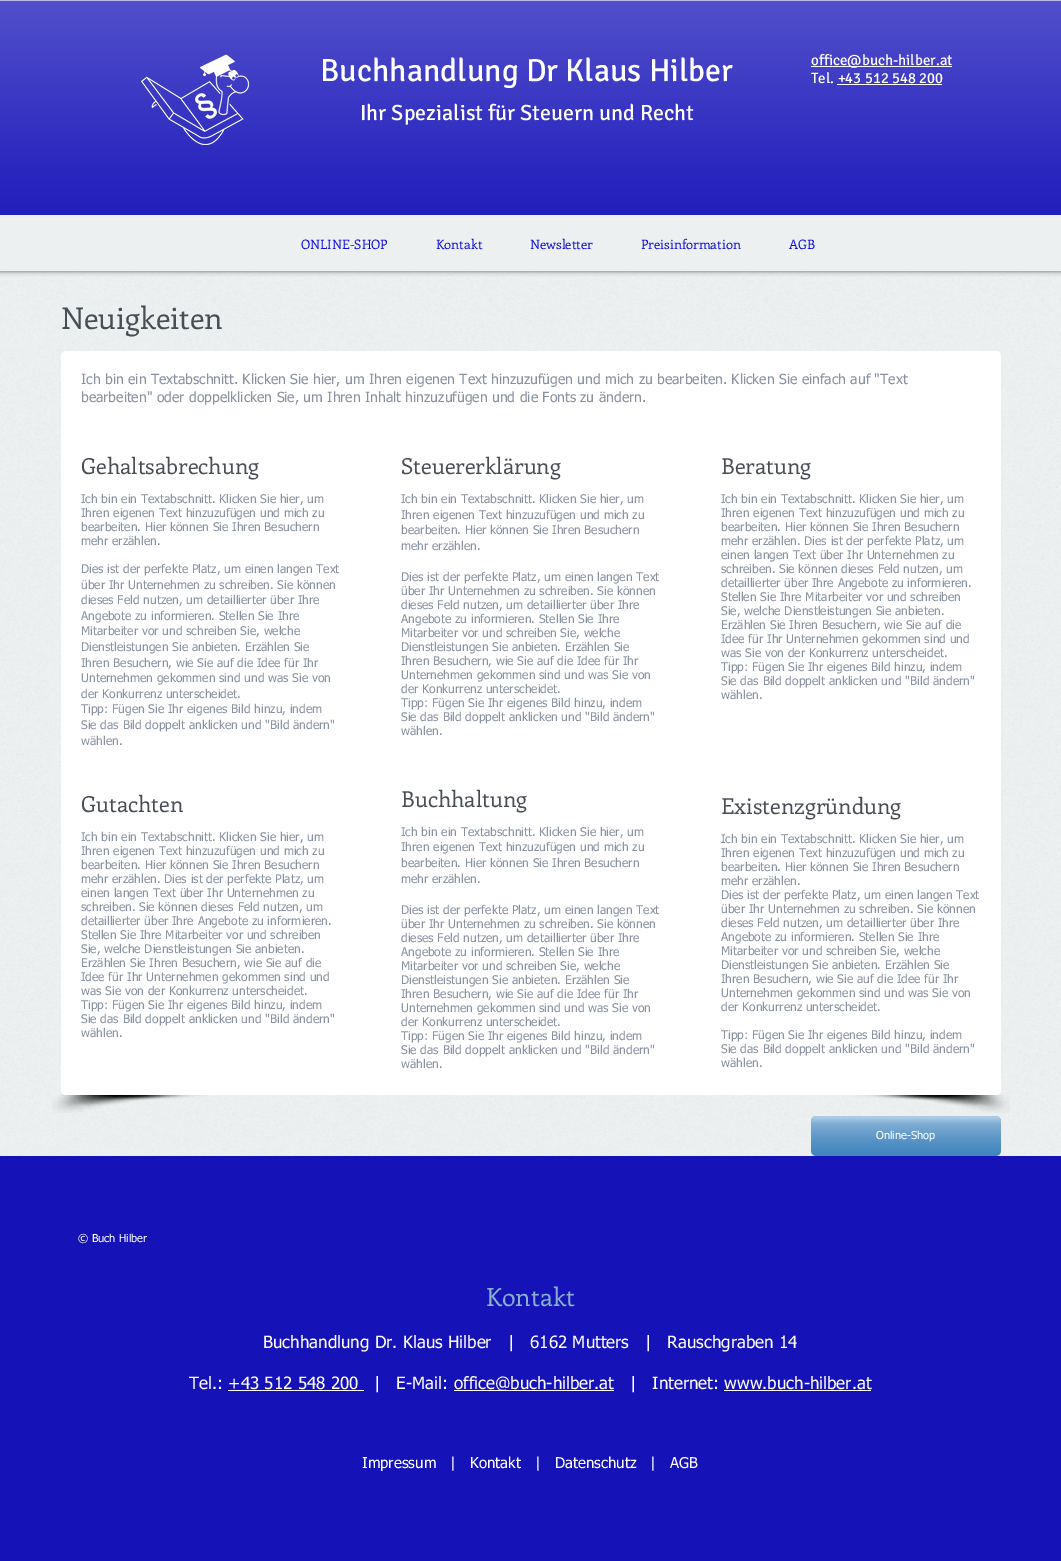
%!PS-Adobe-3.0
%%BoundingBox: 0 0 1061 1561
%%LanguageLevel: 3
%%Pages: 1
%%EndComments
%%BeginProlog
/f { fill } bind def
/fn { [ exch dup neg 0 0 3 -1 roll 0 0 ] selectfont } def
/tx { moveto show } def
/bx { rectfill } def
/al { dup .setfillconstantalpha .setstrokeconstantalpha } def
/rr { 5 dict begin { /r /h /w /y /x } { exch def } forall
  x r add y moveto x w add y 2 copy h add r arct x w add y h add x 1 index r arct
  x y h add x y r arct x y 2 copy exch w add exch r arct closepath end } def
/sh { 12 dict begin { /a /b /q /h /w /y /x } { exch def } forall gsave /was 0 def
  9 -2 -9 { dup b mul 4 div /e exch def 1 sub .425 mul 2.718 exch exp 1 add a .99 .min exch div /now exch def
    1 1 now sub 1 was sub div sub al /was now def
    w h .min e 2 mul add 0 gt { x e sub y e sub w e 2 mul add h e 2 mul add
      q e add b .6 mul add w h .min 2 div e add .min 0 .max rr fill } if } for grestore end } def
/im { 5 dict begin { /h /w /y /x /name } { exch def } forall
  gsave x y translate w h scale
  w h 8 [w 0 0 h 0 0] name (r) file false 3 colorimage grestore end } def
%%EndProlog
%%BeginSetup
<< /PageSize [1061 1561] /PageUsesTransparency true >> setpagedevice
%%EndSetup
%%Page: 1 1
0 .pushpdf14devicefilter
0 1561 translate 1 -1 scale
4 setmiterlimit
0.925 0.941 0.945 setrgbcolor
0 0 1061 1561 bx
(image5.raw) 0 271 1061 885 im
0 setgray
0 0 1061 271 0 2.5 0.6 sh
0.082 0.071 0.722 setrgbcolor
0 1 1061 214 bx
(image0.raw) 0 1 1061 214 im
0.729 0.725 0.918 setrgbcolor
0 0 1061 1 bx
(image1.raw) 141 54 109 91 im
/Signika-Regular 32 fn
1 setgray
(Buchhandlung Dr Klaus Hilber) 320 81 tx
/Signika-Regular 22 fn
(Ihr Spezialist für Steuern und Recht) 360 120 tx
811 66 141 1 bx
/Signika-Regular 15 fn
(office@buch-hilber.at) 811 65 tx
(Tel. +43 512 548 200) 811 83 tx
837 84 105 1 bx
0.925 0.941 0.945 setrgbcolor
0 215 1061 56 bx
/Enriqueta-Regular 13 fn
0.047 0.035 0.859 setrgbcolor
(ONLINE-SHOP) 301 249 tx
(Kontakt) 436 249 tx
(Newsletter) 530 249 tx
(Preisinformation) 641 249 tx
(AGB) 789 249 tx
/Enriqueta-Regular 30 fn
0.282 0.302 0.337 setrgbcolor
(Neuigkeiten) 61 329 tx
1 setgray
61 351 940 744 5 rr f
/tahoma-Regular 14 fn
0.533 0.573 0.631 setrgbcolor
(Ich bin ein Textabschnitt. Klicken Sie hier, um Ihren eigenen Text hinzuzufügen und mich zu bearbeiten. Klicken Sie einfach auf "Text) 81 384 tx
(bearbeiten" oder doppelklicken Sie, um Ihren Inhalt hinzuzufügen und die Fonts zu ändern.) 81 402 tx
/Enriqueta-Regular 22 fn
0.282 0.302 0.337 setrgbcolor
(Gehaltsabrechung) 81 474 tx
/tahoma-Regular 12 fn
0.533 0.573 0.631 setrgbcolor
(Ich bin ein Textabschnitt. Klicken Sie hier, um) 81 503 tx
(Ihren eigenen Text hinzuzufügen und mich zu) 81 517 tx
(bearbeiten. Hier können Sie Ihren Besuchern) 81 531 tx
(mehr erzählen.) 81 545 tx
(Dies ist der perfekte Platz, um einen langen Text) 81 573 tx
(über Ihr Unternehmen zu schreiben. Sie können) 81 589 tx
(dieses Feld nutzen, um detaillierter über Ihre) 81 604 tx
(Angebote zu informieren. Stellen Sie Ihre) 81 620 tx
(Mitarbeiter vor und schreiben Sie, welche) 81 635 tx
(Dienstleistungen Sie anbieten. Erzählen Sie) 81 651 tx
(Ihren Besuchern, wie Sie auf die Idee für Ihr) 81 667 tx
(Unternehmen gekommen sind und was Sie von) 81 682 tx
(der Konkurrenz unterscheidet.) 81 698 tx
(Tipp: Fügen Sie Ihr eigenes Bild hinzu, indem) 81 713 tx
(Sie das Bild doppelt anklicken und "Bild ändern") 81 729 tx
(wählen.) 81 745 tx
/Enriqueta-Regular 22 fn
0.282 0.302 0.337 setrgbcolor
(Steuererklärung) 401 474 tx
/tahoma-Regular 12 fn
0.533 0.573 0.631 setrgbcolor
(Ich bin ein Textabschnitt. Klicken Sie hier, um) 401 503 tx
(Ihren eigenen Text hinzuzufügen und mich zu) 401 519 tx
(bearbeiten. Hier können Sie Ihren Besuchern) 401 534 tx
(mehr erzählen.) 401 550 tx
(Dies ist der perfekte Platz, um einen langen Text) 401 581 tx
(über Ihr Unternehmen zu schreiben. Sie können) 401 595 tx
(dieses Feld nutzen, um detaillierter über Ihre) 401 609 tx
(Angebote zu informieren. Stellen Sie Ihre) 401 623 tx
(Mitarbeiter vor und schreiben Sie, welche) 401 637 tx
(Dienstleistungen Sie anbieten. Erzählen Sie) 401 651 tx
(Ihren Besuchern, wie Sie auf die Idee für Ihr) 401 665 tx
(Unternehmen gekommen sind und was Sie von) 401 679 tx
(der Konkurrenz unterscheidet.) 401 693 tx
(Tipp: Fügen Sie Ihr eigenes Bild hinzu, indem) 401 707 tx
(Sie das Bild doppelt anklicken und "Bild ändern") 401 721 tx
(wählen.) 401 735 tx
/Enriqueta-Regular 22 fn
0.282 0.302 0.337 setrgbcolor
(Beratung) 721 474 tx
/tahoma-Regular 12 fn
0.533 0.573 0.631 setrgbcolor
(Ich bin ein Textabschnitt. Klicken Sie hier, um) 721 503 tx
(Ihren eigenen Text hinzuzufügen und mich zu) 721 517 tx
(bearbeiten. Hier können Sie Ihren Besuchern) 721 531 tx
(mehr erzählen. Dies ist der perfekte Platz, um) 721 545 tx
(einen langen Text über Ihr Unternehmen zu) 721 559 tx
(schreiben. Sie können dieses Feld nutzen, um) 721 573 tx
(detaillierter über Ihre Angebote zu informieren.) 721 587 tx
(Stellen Sie Ihre Mitarbeiter vor und schreiben) 721 601 tx
(Sie, welche Dienstleistungen Sie anbieten.) 721 615 tx
(Erzählen Sie Ihren Besuchern, wie Sie auf die) 721 629 tx
(Idee für Ihr Unternehmen gekommen sind und) 721 643 tx
(was Sie von der Konkurrenz unterscheidet.) 721 657 tx
(Tipp: Fügen Sie Ihr eigenes Bild hinzu, indem) 721 671 tx
(Sie das Bild doppelt anklicken und "Bild ändern") 721 685 tx
(wählen.) 721 699 tx
/Enriqueta-Regular 22 fn
0.282 0.302 0.337 setrgbcolor
(Gutachten) 81 812 tx
/tahoma-Regular 12 fn
0.533 0.573 0.631 setrgbcolor
(Ich bin ein Textabschnitt. Klicken Sie hier, um) 81 841 tx
(Ihren eigenen Text hinzuzufügen und mich zu) 81 855 tx
(bearbeiten. Hier können Sie Ihren Besuchern) 81 869 tx
(mehr erzählen. Dies ist der perfekte Platz, um) 81 883 tx
(einen langen Text über Ihr Unternehmen zu) 81 897 tx
(schreiben. Sie können dieses Feld nutzen, um) 81 911 tx
(detaillierter über Ihre Angebote zu informieren.) 81 925 tx
(Stellen Sie Ihre Mitarbeiter vor und schreiben) 81 939 tx
(Sie, welche Dienstleistungen Sie anbieten.) 81 953 tx
(Erzählen Sie Ihren Besuchern, wie Sie auf die) 81 967 tx
(Idee für Ihr Unternehmen gekommen sind und) 81 981 tx
(was Sie von der Konkurrenz unterscheidet.) 81 995 tx
(Tipp: Fügen Sie Ihr eigenes Bild hinzu, indem) 81 1009 tx
(Sie das Bild doppelt anklicken und "Bild ändern") 81 1023 tx
(wählen.) 81 1037 tx
/Enriqueta-Regular 22 fn
0.282 0.302 0.337 setrgbcolor
(Buchhaltung) 401 807 tx
/tahoma-Regular 12 fn
0.533 0.573 0.631 setrgbcolor
(Ich bin ein Textabschnitt. Klicken Sie hier, um) 401 836 tx
(Ihren eigenen Text hinzuzufügen und mich zu) 401 851 tx
(bearbeiten. Hier können Sie Ihren Besuchern) 401 867 tx
(mehr erzählen.) 401 883 tx
(Dies ist der perfekte Platz, um einen langen Text) 401 914 tx
(über Ihr Unternehmen zu schreiben. Sie können) 401 928 tx
(dieses Feld nutzen, um detaillierter über Ihre) 401 942 tx
(Angebote zu informieren. Stellen Sie Ihre) 401 956 tx
(Mitarbeiter vor und schreiben Sie, welche) 401 970 tx
(Dienstleistungen Sie anbieten. Erzählen Sie) 401 984 tx
(Ihren Besuchern, wie Sie auf die Idee für Ihr) 401 998 tx
(Unternehmen gekommen sind und was Sie von) 401 1012 tx
(der Konkurrenz unterscheidet.) 401 1026 tx
(Tipp: Fügen Sie Ihr eigenes Bild hinzu, indem) 401 1040 tx
(Sie das Bild doppelt anklicken und "Bild ändern") 401 1054 tx
(wählen.) 401 1068 tx
/Enriqueta-Regular 22 fn
0.282 0.302 0.337 setrgbcolor
(Existenzgründung) 721 814 tx
/tahoma-Regular 12 fn
0.533 0.573 0.631 setrgbcolor
(Ich bin ein Textabschnitt. Klicken Sie hier, um) 721 843 tx
(Ihren eigenen Text hinzuzufügen und mich zu) 721 857 tx
(bearbeiten. Hier können Sie Ihren Besuchern) 721 871 tx
(mehr erzählen.) 721 885 tx
(Dies ist der perfekte Platz, um einen langen Text) 721 899 tx
(über Ihr Unternehmen zu schreiben. Sie können) 721 913 tx
(dieses Feld nutzen, um detaillierter über Ihre) 721 927 tx
(Angebote zu informieren. Stellen Sie Ihre) 721 941 tx
(Mitarbeiter vor und schreiben Sie, welche) 721 955 tx
(Dienstleistungen Sie anbieten. Erzählen Sie) 721 969 tx
(Ihren Besuchern, wie Sie auf die Idee für Ihr) 721 983 tx
(Unternehmen gekommen sind und was Sie von) 721 997 tx
(der Konkurrenz unterscheidet.) 721 1011 tx
(Tipp: Fügen Sie Ihr eigenes Bild hinzu, indem) 721 1039 tx
(Sie das Bild doppelt anklicken und "Bild ändern") 721 1053 tx
(wählen.) 721 1067 tx
(image2.raw) 52 1095 154 18 im
(image3.raw) 856 1095 154 18 im
0.22 0.498 0.733 setrgbcolor
811 1116 190 40 5 rr f
(image4.raw) 811 1116 190 40 im
/tahoma-Regular 11 fn
1 setgray
(Online-Shop) 876 1139 tx
0.082 0.071 0.722 setrgbcolor
0 1156 1061 405 bx
1 setgray
(© Buch Hilber) 78 1242 tx
/Enriqueta-Regular 25 fn
0.529 0.69 0.82 setrgbcolor
(Kontakt) 486 1306 tx
/tahoma-Regular 17 fn
1 setgray
(Buchhandlung Dr. Klaus Hilber   |) 263 1348 tx
(6162 Mutters   |   Rauschgraben 14) 530 1348 tx
(Tel.: +43 512 548 200) 189 1389 tx
228 1390 136 1 bx
(|   E-Mail:) 374 1389 tx
454 1390 160 1 bx
(office@buch-hilber.at) 454 1389 tx
(|   Internet: www.buch-hilber.at) 630 1389 tx
724 1390 147 1 bx
/tahoma-Regular 15 fn
(Impressum) 362 1468 tx
(|) 450 1468 tx
(Kontakt) 470 1468 tx
(|) 535 1468 tx
(Datenschutz) 555 1468 tx
(|) 650 1468 tx
(AGB) 670 1468 tx
.poppdf14devicefilter showpage
%%EOF
